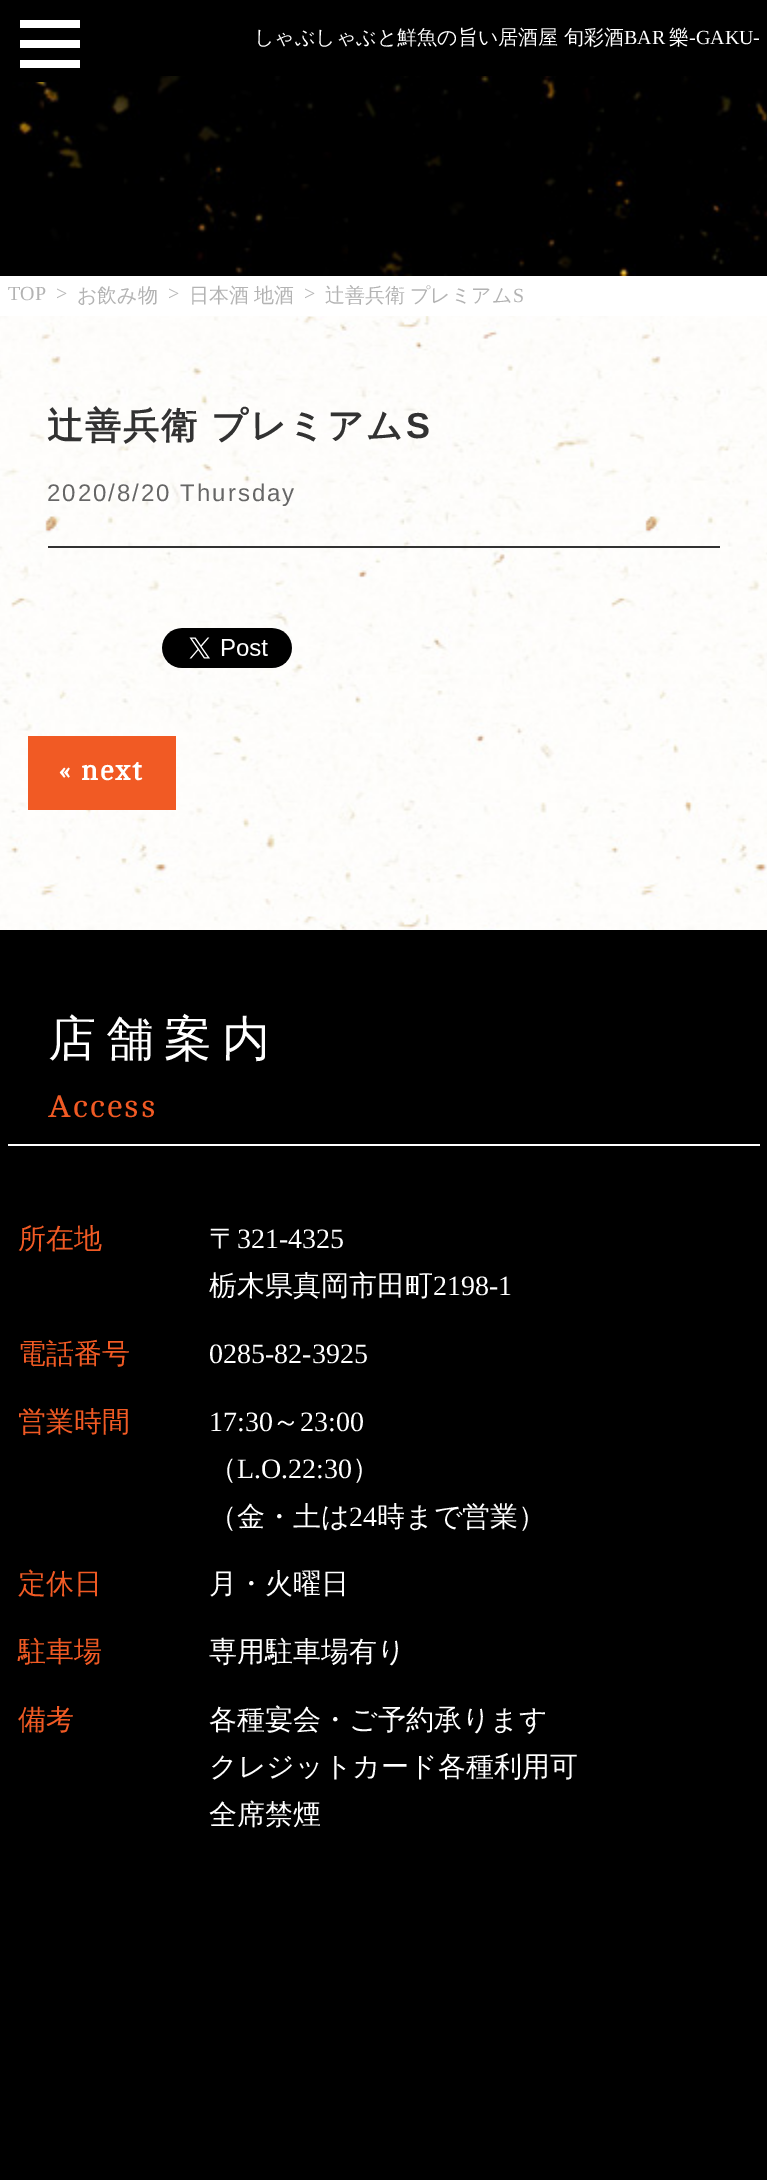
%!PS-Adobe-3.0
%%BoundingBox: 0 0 767 2180
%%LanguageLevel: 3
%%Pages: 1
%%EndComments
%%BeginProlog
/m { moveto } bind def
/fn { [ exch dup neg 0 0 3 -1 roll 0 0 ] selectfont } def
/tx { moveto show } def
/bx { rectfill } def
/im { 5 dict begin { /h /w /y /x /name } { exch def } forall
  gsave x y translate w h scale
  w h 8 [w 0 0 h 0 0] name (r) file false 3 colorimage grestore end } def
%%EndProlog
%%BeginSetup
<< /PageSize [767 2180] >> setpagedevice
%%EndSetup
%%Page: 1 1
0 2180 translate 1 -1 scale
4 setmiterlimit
1 setgray
0 0 767 2180 bx
(image0.raw) 0 76 767 200 im
0 setgray
12 76 46 6 bx
0 0 767 76 bx
1 setgray
20 20 60 8 bx
20 40 60 8 bx
20 60 60 8 bx
/WenQuanYiZenHei-Medium 20 fn
(しゃぶしゃぶと鮮魚の旨い居酒屋 旬彩酒) 254 44 tx
/LiberationSerif-Regular 20 fn
(BAR) 624 44 tx
/WenQuanYiZenHei-Medium 20 fn
(樂) 669 44 tx
/LiberationSerif-Regular 20 fn
(-GAKU-) 689 44 tx
0.702 setgray
(TOP) 8 300 tx
(>) 56 300 tx
/WenQuanYiZenHei-Medium 20 fn
(お飲み物) 77 302 tx
/LiberationSerif-Regular 20 fn
(>) 168 300 tx
/WenQuanYiZenHei-Medium 20 fn
189 302 m -1 0 32 (日本酒 地酒) widthshow
/LiberationSerif-Regular 20 fn
(>) 304 300 tx
/WenQuanYiZenHei-Medium 20 fn
325 302 m -1 0 32 (辻善兵衛 プレミアム) widthshow
/LiberationSerif-Regular 20 fn
(S) 513 302 tx
(image1.raw) 0 316 767 614 im
0.196 setgray
48 546 672 2 bx
/WenQuanYiZenHei-Bold 36 fn
47 438 m -1 0 32 2 0 (辻善兵衛 プレミアム) awidthshow
/LiberationSans-Bold 36 fn
406 438 m 2 0 (S) ashow
/LiberationSans-Regular 24 fn
0.4 setgray
47 501 m 2 0 (2020/8/20 Thursday) ashow
(image2.raw) 162 628 130 40 im
0.945 0.353 0.141 setrgbcolor
28 736 148 74 bx
/Cambo-Bold 28 fn
1 setgray
59 780 m 2 0 (« next) ashow
0 setgray
0 930 767 1250 bx
1 setgray
8 1144 752 2 bx
/WenQuanYiZenHei-Medium 48 fn
48 1055 m 10 0 (店舗案内) ashow
/Cambo-Regular 32 fn
0.945 0.353 0.141 setrgbcolor
48 1117 m 2 0 (Access) ashow
/WenQuanYiZenHei-Medium 28 fn
(所在地) 18 1248 tx
1 setgray
(〒) 209 1248 tx
/LiberationSerif-Regular 28 fn
(321-4325) 237 1248 tx
/WenQuanYiZenHei-Medium 28 fn
(栃木県真岡市田町) 209 1295 tx
/LiberationSerif-Regular 28 fn
(2198-1) 433 1295 tx
/WenQuanYiZenHei-Medium 28 fn
0.945 0.353 0.141 setrgbcolor
(電話番号) 18 1363 tx
/LiberationSerif-Regular 28 fn
1 setgray
(0285-82-3925) 209 1363 tx
/WenQuanYiZenHei-Medium 28 fn
0.945 0.353 0.141 setrgbcolor
(営業時間) 18 1431 tx
/LiberationSerif-Regular 28 fn
1 setgray
(17:30) 209 1431 tx
/WenQuanYiZenHei-Medium 28 fn
(～) 272 1431 tx
/LiberationSerif-Regular 28 fn
(23:00) 300 1431 tx
/WenQuanYiZenHei-Medium 28 fn
(（) 209 1478 tx
/LiberationSerif-Regular 28 fn
(L.O.22:30) 237 1478 tx
/WenQuanYiZenHei-Medium 28 fn
(）) 352 1478 tx
(（金・土は) 209 1526 tx
/LiberationSerif-Regular 28 fn
(24) 349 1526 tx
/WenQuanYiZenHei-Medium 28 fn
(時まで営業）) 377 1526 tx
0.945 0.353 0.141 setrgbcolor
(定休日) 18 1593 tx
1 setgray
(月・火曜日) 209 1593 tx
0.945 0.353 0.141 setrgbcolor
(駐車場) 18 1661 tx
1 setgray
(専用駐車場有り) 209 1661 tx
0.945 0.353 0.141 setrgbcolor
(備考) 18 1729 tx
1 setgray
(各種宴会・ご予約承ります) 209 1729 tx
(クレジットカード各種利用可) 209 1776 tx
(全席禁煙) 209 1824 tx
showpage
%%EOF
